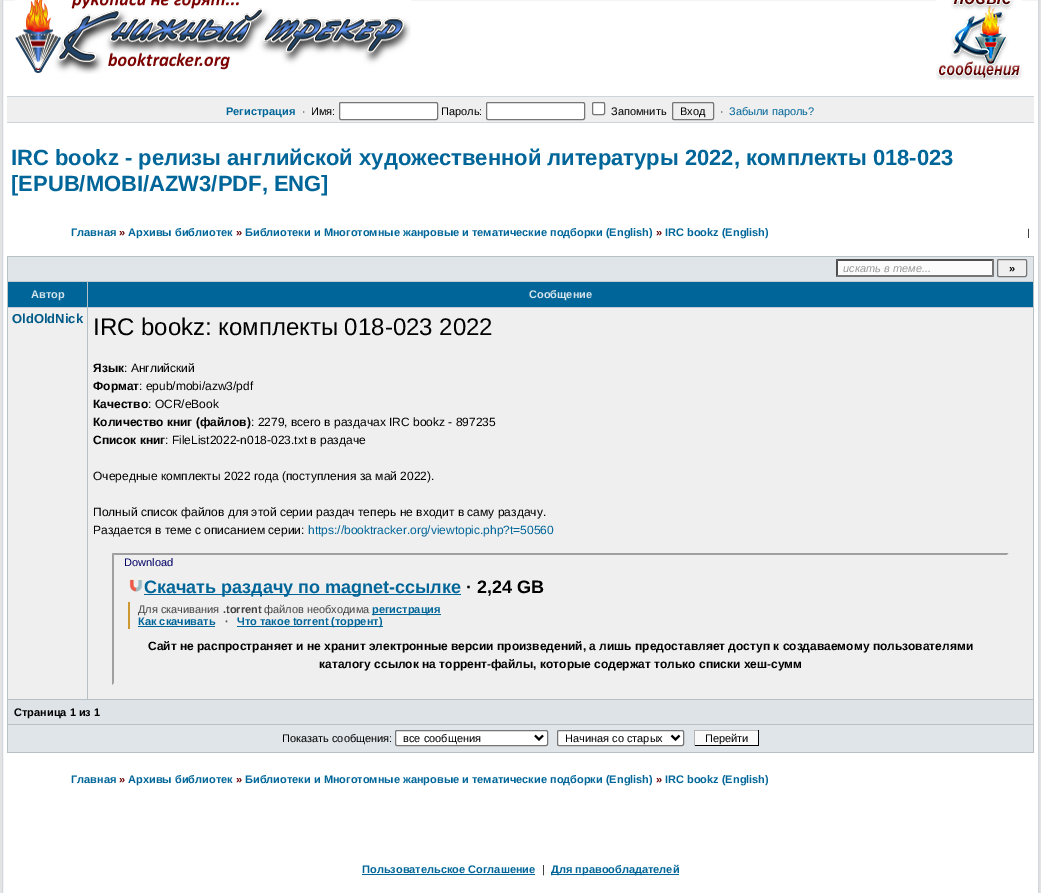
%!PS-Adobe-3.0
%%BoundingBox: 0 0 1041 893
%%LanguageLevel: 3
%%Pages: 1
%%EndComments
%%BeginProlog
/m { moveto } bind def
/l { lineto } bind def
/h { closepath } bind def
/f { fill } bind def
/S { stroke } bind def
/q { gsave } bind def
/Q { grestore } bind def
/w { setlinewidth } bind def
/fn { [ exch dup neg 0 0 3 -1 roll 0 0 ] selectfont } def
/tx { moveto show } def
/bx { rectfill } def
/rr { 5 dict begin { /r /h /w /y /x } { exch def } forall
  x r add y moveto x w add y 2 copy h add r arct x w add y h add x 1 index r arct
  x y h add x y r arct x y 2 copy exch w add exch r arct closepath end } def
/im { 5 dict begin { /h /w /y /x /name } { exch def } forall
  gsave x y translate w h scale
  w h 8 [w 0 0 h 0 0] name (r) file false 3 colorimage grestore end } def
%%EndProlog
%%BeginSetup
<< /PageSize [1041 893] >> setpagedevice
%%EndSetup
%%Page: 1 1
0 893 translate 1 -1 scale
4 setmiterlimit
0.89 setgray
0 0 1041 893 bx
1 setgray
2.5 -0.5 m 1038.5 -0.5 l 1038.5 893.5 l 2.5 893.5 l h q f Q
0.82 0.843 0.863 setrgbcolor
S
(image0.raw) 15 0 396 74 im
(image1.raw) 936 0 86 80 im
0.937 setgray
7 97 1027 25 bx
0.812 0.831 0.847 setrgbcolor
7 96 1027 1 bx
7 122 1027 1 bx
/LiberationSans-Bold 11 fn
0 0.4 0.6 setrgbcolor
(Регистрация) 226 115 tx
/LiberationSans-Regular 11 fn
0 setgray
(·) 302 115 tx
(Имя:) 311 115 tx
1 setgray
339.5 102.5 98 17 1.5 rr q f Q
0.463 setgray
S
0 setgray
(Пароль:) 441 115 tx
1 setgray
486.5 102.5 98 17 1.5 rr q f Q
0.463 setgray
S
1 setgray
592.5 102.5 12 12 1.5 rr q f Q
0.463 setgray
S
0 setgray
(Запомнить) 611 115 tx
0.463 setgray
672.5 102.5 41 17 1.5 rr S
0 setgray
(Вход) 680 115 tx
(·) 720 115 tx
0 0.4 0.6 setrgbcolor
(Забыли пароль?) 729 115 tx
/LiberationSans-Bold 22 fn
(IRC bookz - релизы английской художественной литературы 2022, комплекты 018-023) 11 165 tx
([EPUB/MOBI/AZW3/PDF, ENG]) 11 191 tx
/LiberationSans-Bold 11 fn
(Главная) 71 236 tx
0.4 0 0 setrgbcolor
(») 119 236 tx
0 0.4 0.6 setrgbcolor
(Архивы библиотек) 128 236 tx
0.4 0 0 setrgbcolor
(») 236 236 tx
0 0.4 0.6 setrgbcolor
(Библиотеки и Многотомные жанровые и тематические подборки \(English\)) 245 236 tx
0.4 0 0 setrgbcolor
(») 656 236 tx
0 0.4 0.6 setrgbcolor
(IRC bookz \(English\)) 665 236 tx
/LiberationSans-Regular 10 fn
0 setgray
(|) 1027 236 tx
0.718 0.753 0.773 setrgbcolor
7 256 1027 1 bx
1033 256 1 497 bx
7 256 1 25 bx
0.878 0.898 0.914 setrgbcolor
8 257 1025 24 bx
0.988 setgray
836 259 158 18 bx
0.31 setgray
836 259 m 994 259 l 992 261 l 838 261 l h f
0.463 setgray
994 259 m 994 277 l 992 275 l 992 261 l h f
994 277 m 836 277 l 838 275 l 992 275 l h f
0.31 setgray
836 277 m 836 259 l 838 261 l 838 275 l h f
/LiberationSans-Italic 11 fn
0.6 setgray
(искать в теме...) 843 272 tx
0.937 setgray
997.5 259.5 29 17 1.5 rr q f Q
0.463 setgray
S
/LiberationSans-Bold 11 fn
0 setgray
(») 1009 272 tx
0.718 0.753 0.773 setrgbcolor
7 699 1027 1 bx
7 281 1 419 bx
0 0.4 0.6 setrgbcolor
8 282 79 25 bx
0.765 0.796 0.82 setrgbcolor
8 281 1025 1 bx
0.718 0.753 0.773 setrgbcolor
87 281 1 26 bx
0.835 0.894 0.925 setrgbcolor
(Автор) 31 298 tx
0 0.4 0.6 setrgbcolor
88 282 945 25 bx
0.835 0.894 0.925 setrgbcolor
(Сообщение) 529 298 tx
0.937 setgray
8 308 1025 391 bx
0.765 0.796 0.82 setrgbcolor
8 307 1025 1 bx
0.718 0.753 0.773 setrgbcolor
87 307 1 392 bx
/LiberationSans-Bold 13 fn
0 0.353 0.533 setrgbcolor
(OldOldNick) 12 323 tx
/LiberationSans-Regular 24 fn
0 setgray
(IRC bookz: комплекты 018-023 2022) 93 335 tx
/LiberationSans-Bold 12 fn
(Язык) 93 372 tx
/LiberationSans-Regular 12 fn
(: Английский) 124 372 tx
/LiberationSans-Bold 12 fn
(Формат) 93 390 tx
/LiberationSans-Regular 12 fn
(: epub/mobi/azw3/pdf) 139 390 tx
/LiberationSans-Bold 12 fn
(Качество) 93 408 tx
/LiberationSans-Regular 12 fn
(: OCR/eBook) 148 408 tx
/LiberationSans-Bold 12 fn
(Количество книг \(файлов\)) 93 426 tx
/LiberationSans-Regular 12 fn
(: 2279, всего в раздачах IRC bookz - 897235) 251 426 tx
/LiberationSans-Bold 12 fn
(Список книг) 93 444 tx
/LiberationSans-Regular 12 fn
(: FileList2022-n018-023.txt в раздаче) 165 444 tx
(Очередные комплекты 2022 года \(поступления за май 2022\).) 93 480 tx
(Полный список файлов для этой серии раздач теперь не входит в саму раздачу.) 93 516 tx
(Раздается в теме с описанием серии:) 93 534 tx
0 0.4 0.6 setrgbcolor
(https://booktracker.org/viewtopic.php?t=50560) 308 534 tx
0.624 setgray
112 553 m 1009 553 l 1007 555 l 114 555 l h f
0.937 setgray
1009 553 m 1009 685 l 1007 683 l 1007 555 l h f
0.624 setgray
112 685 m 112 553 l 114 555 l 114 683 l h f
/LiberationSans-Regular 11 fn
0 0 0.4 setrgbcolor
(Download) 124 566 tx
(image2.raw) 129 578 14 14 im
0 0.4 0.6 setrgbcolor
144 594 317 1 bx
/LiberationSans-Bold 18 fn
(Скачать раздачу по magnet-ссылке) 144 593 tx
0 setgray
(· 2,24 GB) 466 593 tx
0.8 0.6 0.2 setrgbcolor
128 602 2 27 bx
/LiberationSans-Regular 11 fn
0.267 setgray
(Для скачивания) 138 613 tx
/LiberationSans-Bold 11 fn
(.torrent) 223 613 tx
/LiberationSans-Regular 11 fn
(файлов необходима) 264 613 tx
0 0.4 0.6 setrgbcolor
372 614 69 1 bx
/LiberationSans-Bold 11 fn
(регистрация) 372 613 tx
(Как скачивать) 138 625 tx
138 626 77 1 bx
0.267 setgray
(·) 225 625 tx
0 0.4 0.6 setrgbcolor
237 626 146 1 bx
(Что такое torrent \(торрент\)) 237 625 tx
/LiberationSans-Bold 12 fn
0 setgray
(Сайт не распространяет и не хранит электронные версии произведений, а лишь предоставляет доступ к создаваемому пользователями) 148 650 tx
(каталогу ссылок на торрент-файлы, которые содержат только списки хеш-сумм) 319 668 tx
0.718 0.753 0.773 setrgbcolor
7 724 1027 1 bx
7 700 1 25 bx
0.871 0.89 0.906 setrgbcolor
8 700 1025 24 bx
/LiberationSans-Bold 11 fn
0 setgray
(Страница 1 из 1) 14 716 tx
0.718 0.753 0.773 setrgbcolor
7 752 1027 1 bx
7 725 1 28 bx
0.878 0.898 0.914 setrgbcolor
8 725 1025 27 bx
/LiberationSans-Regular 11 fn
0 setgray
(Показать сообщения:) 282 742 tx
1 setgray
395.5 730.5 152 15 1.5 rr q f Q
0.463 setgray
S
0 setgray
2 w
535 735.5 m 539 739.5 l 543 735.5 l S
(все сообщения) 403 742 tx
1 setgray
557.5 730.5 126 15 1.5 rr q f Q
0.463 setgray
1 w
S
0 setgray
2 w
671.5 735.5 m 675.5 739.5 l 679.5 735.5 l S
(Начиная со старых) 565 742 tx
0.98 setgray
695 731 63 14 bx
0.706 setgray
694 730 65 1 bx
0 setgray
758 730 1 16 bx
694 745 65 1 bx
0.706 setgray
694 730 1 16 bx
0 setgray
(Перейти) 705 742 tx
/LiberationSans-Bold 11 fn
0 0.4 0.6 setrgbcolor
(Главная) 71 783 tx
0.4 0 0 setrgbcolor
(») 119 783 tx
0 0.4 0.6 setrgbcolor
(Архивы библиотек) 128 783 tx
0.4 0 0 setrgbcolor
(») 236 783 tx
0 0.4 0.6 setrgbcolor
(Библиотеки и Многотомные жанровые и тематические подборки \(English\)) 245 783 tx
0.4 0 0 setrgbcolor
(») 656 783 tx
0 0.4 0.6 setrgbcolor
(IRC bookz \(English\)) 665 783 tx
(Пользовательское Соглашение) 362 873 tx
362 874 173 1 bx
/LiberationSans-Regular 11 fn
0 setgray
(|) 542 873 tx
0 0.4 0.6 setrgbcolor
551 874 128 1 bx
/LiberationSans-Bold 11 fn
(Для правообладателей) 551 873 tx
showpage
%%EOF
